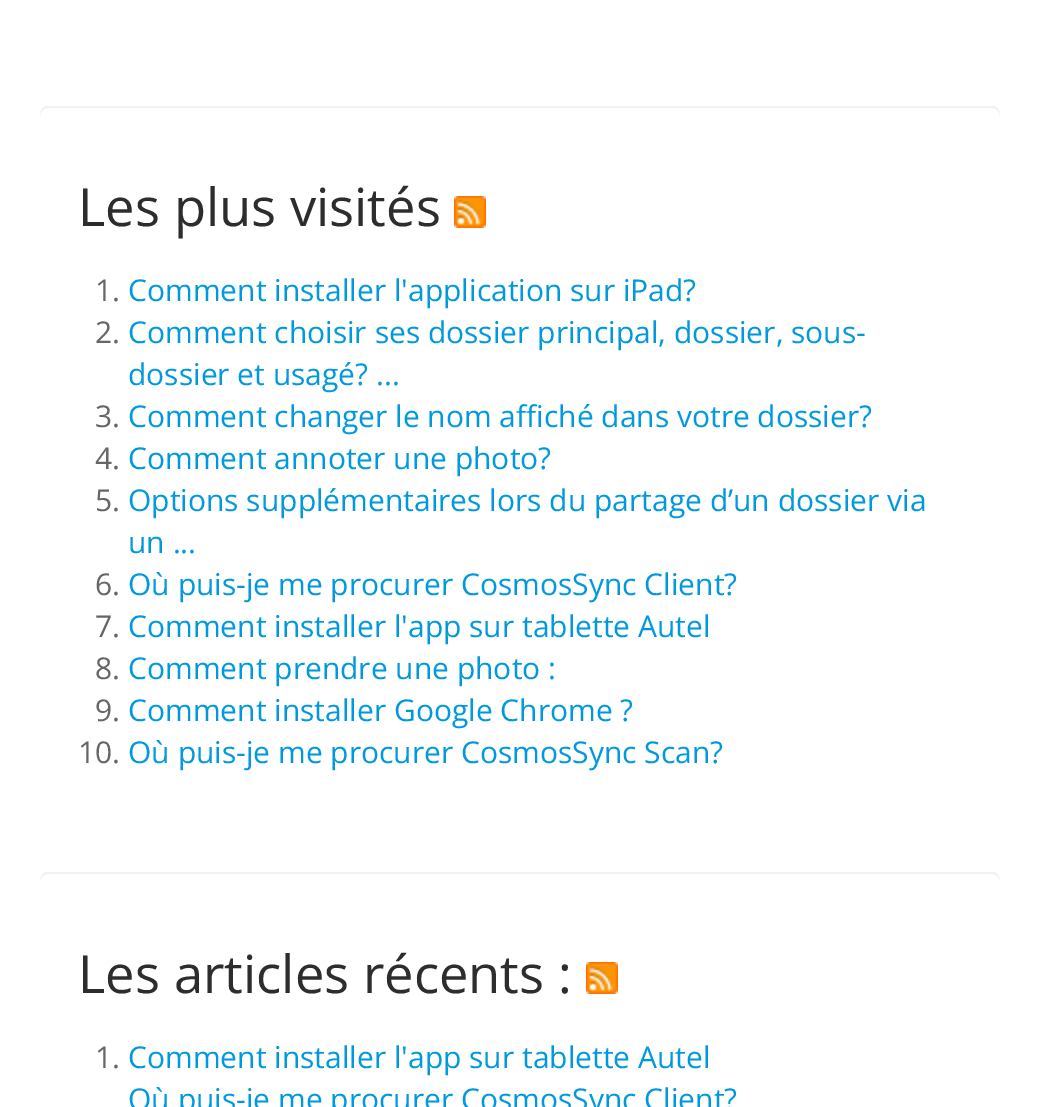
%!PS-Adobe-3.0
%%BoundingBox: 0 0 1040 1107
%%LanguageLevel: 3
%%Pages: 1
%%EndComments
%%BeginProlog
/m { moveto } bind def
/l { lineto } bind def
/c { curveto } bind def
/h { closepath } bind def
/f { fill } bind def
/fn { [ exch dup neg 0 0 3 -1 roll 0 0 ] selectfont } def
/tx { moveto show } def
/bx { rectfill } def
/im { 5 dict begin { /h /w /y /x /name } { exch def } forall
  gsave x y translate w h scale
  w h 8 [w 0 0 h 0 0] name (r) file false 3 colorimage grestore end } def
%%EndProlog
%%BeginSetup
<< /PageSize [1040 1107] >> setpagedevice
%%EndSetup
%%Page: 1 1
0 1107 translate 1 -1 scale
4 setmiterlimit
1 setgray
0 0 1040 1107 bx
0.949 setgray
48 108 m 992 108 l 996 108 1000 112 1000 116 c 1000 111 998 106 992 106 c 48 106 l 42 106 40 111 40 116 c 40 112 44 108 48 108 c h f
/OpenSans-Regular 52.5 fn
0.176 setgray
(Les plus visités) 78 226 tx
(image0.raw) 454 196 32 32 im
/OpenSans-Regular 30 fn
0.4 setgray
(1.) 95 301 tx
0 0.6 0.867 setrgbcolor
(Comment installer l'application sur iPad?) 128 301 tx
0.4 setgray
(2.) 95 343 tx
0 0.6 0.867 setrgbcolor
(Comment choisir ses dossier principal, dossier, sous-) 128 343 tx
(dossier et usagé? ...) 128 385 tx
0.4 setgray
(3.) 95 427 tx
0 0.6 0.867 setrgbcolor
(Comment changer le nom affiché dans votre dossier?) 128 427 tx
0.4 setgray
(4.) 95 469 tx
0 0.6 0.867 setrgbcolor
(Comment annoter une photo?) 128 469 tx
0.4 setgray
(5.) 95 511 tx
0 0.6 0.867 setrgbcolor
(Options supplémentaires lors du partage d’un dossier via) 128 511 tx
(un ...) 128 553 tx
0.4 setgray
(6.) 95 595 tx
0 0.6 0.867 setrgbcolor
(Où puis-je me procurer CosmosSync Client?) 128 595 tx
0.4 setgray
(7.) 95 637 tx
0 0.6 0.867 setrgbcolor
(Comment installer l'app sur tablette Autel) 128 637 tx
0.4 setgray
(8.) 95 679 tx
0 0.6 0.867 setrgbcolor
(Comment prendre une photo :) 128 679 tx
0.4 setgray
(9.) 95 721 tx
0 0.6 0.867 setrgbcolor
(Comment installer Google Chrome ?) 128 721 tx
0.4 setgray
(10.) 78 763 tx
0 0.6 0.867 setrgbcolor
(Où puis-je me procurer CosmosSync Scan?) 128 763 tx
0.949 setgray
48 874 m 992 874 l 996 874 1000 878 1000 882 c 1000 877 998 872 992 872 c 48 872 l 42 872 40 877 40 882 c 40 878 44 874 48 874 c h f
/OpenSans-Regular 52.5 fn
0.176 setgray
(Les articles récents :) 78 993 tx
(image0.raw) 586 962 32 32 im
/OpenSans-Regular 30 fn
0.4 setgray
(1.) 95 1068 tx
0 0.6 0.867 setrgbcolor
(Comment installer l'app sur tablette Autel) 128 1068 tx
(Où puis-je me procurer CosmosSync Client?) 128 1110 tx
showpage
%%EOF
